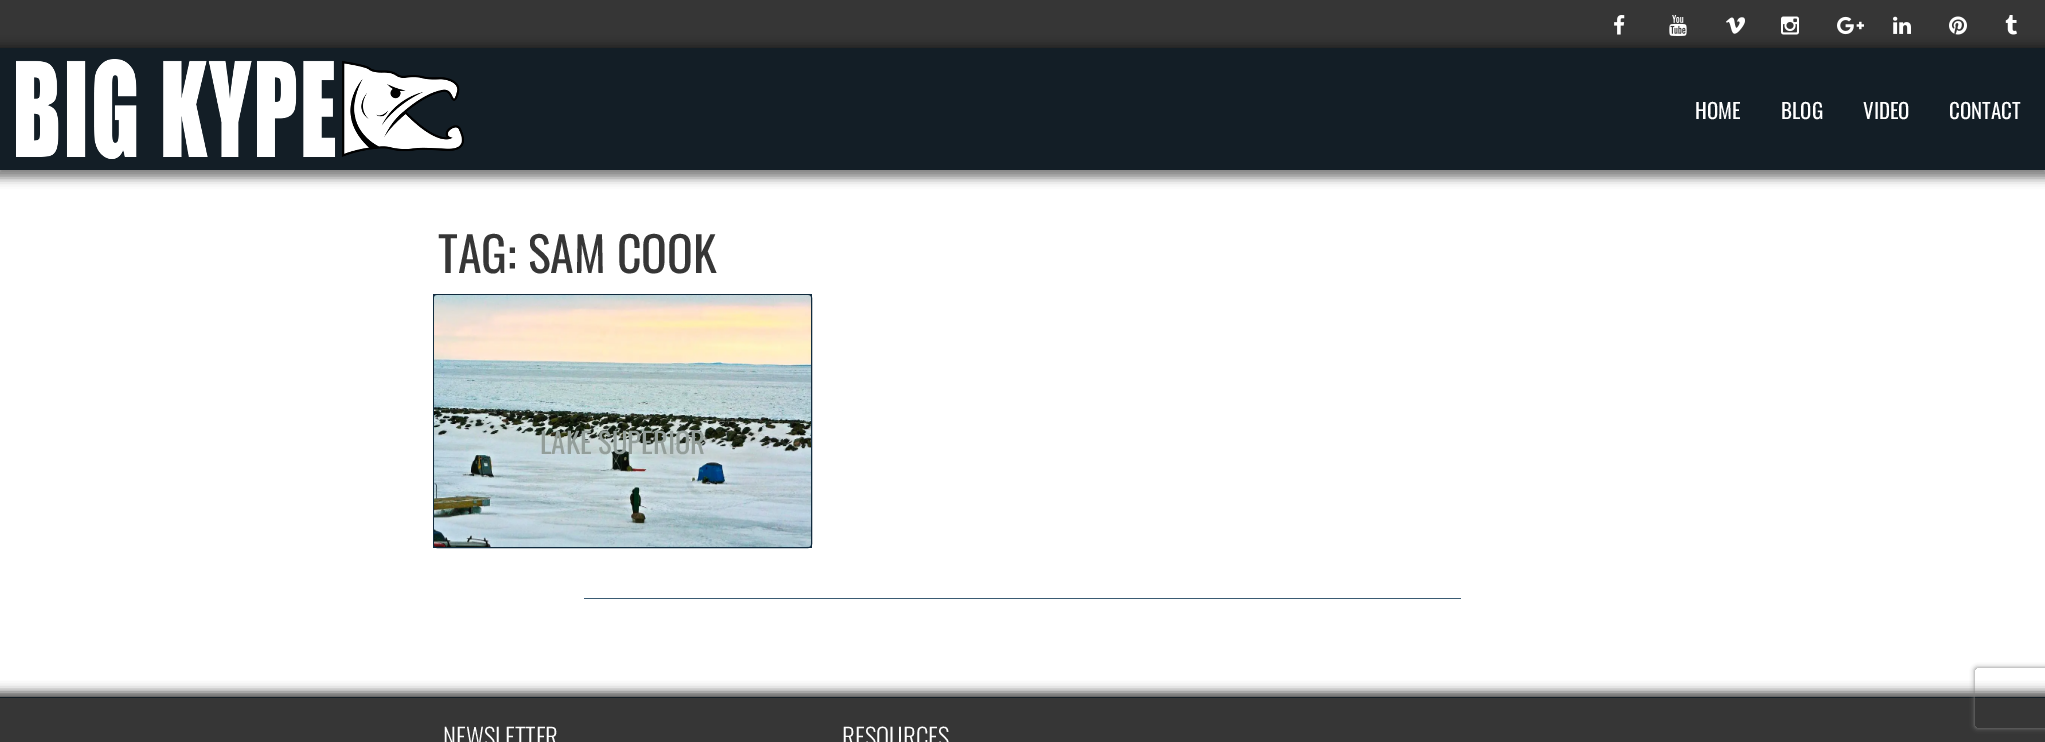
%!PS-Adobe-3.0
%%BoundingBox: 0 0 2045 742
%%LanguageLevel: 3
%%Pages: 1
%%EndComments
%%BeginProlog
/m { moveto } bind def
/l { lineto } bind def
/c { curveto } bind def
/h { closepath } bind def
/S { stroke } bind def
/q { gsave } bind def
/Q { grestore } bind def
/fn { [ exch dup neg 0 0 3 -1 roll 0 0 ] selectfont } def
/tx { moveto show } def
/bx { rectfill } def
/al { dup .setfillconstantalpha .setstrokeconstantalpha } def
/rr { 5 dict begin { /r /h /w /y /x } { exch def } forall
  x r add y moveto x w add y 2 copy h add r arct x w add y h add x 1 index r arct
  x y h add x y r arct x y 2 copy exch w add exch r arct closepath end } def
/sh { 12 dict begin { /a /b /q /h /w /y /x } { exch def } forall gsave /was 0 def
  9 -2 -9 { dup b mul 4 div /e exch def 1 sub .425 mul 2.718 exch exp 1 add a .99 .min exch div /now exch def
    1 1 now sub 1 was sub div sub al /was now def
    w h .min e 2 mul add 0 gt { x e sub y e sub w e 2 mul add h e 2 mul add
      q e add b .6 mul add w h .min 2 div e add .min 0 .max rr fill } if } for grestore end } def
/im { 5 dict begin { /h /w /y /x /name } { exch def } forall
  gsave x y translate w h scale
  w h 8 [w 0 0 h 0 0] name (r) file false 3 colorimage grestore end } def
%%EndProlog
%%BeginSetup
<< /PageSize [2045 742] /PageUsesTransparency true >> setpagedevice
%%EndSetup
%%Page: 1 1
0 .pushpdf14devicefilter
0 742 translate 1 -1 scale
4 setmiterlimit
1 setgray
0 0 2045 742 bx
0.212 setgray
0 0 2045 48 bx
(image0.raw) 1614 15 11 20 im
(image1.raw) 1669 15 18 21 im
(image2.raw) 1726 17 19 17 im
(image3.raw) 1781 16 18 19 im
(image4.raw) 1837 16 27 19 im
(image5.raw) 1893 16 18 18 im
(image6.raw) 1949 16 18 19 im
(image7.raw) 2005 15 12 20 im
0 setgray
-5 46 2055 132 0 5 0.5 sh
0.075 0.118 0.149 setrgbcolor
0 48 2045 122 bx
(image8.raw) 16 59 448 100 im
/Oswald-Regular 21 fn
1 setgray
(HOME) 1695 119 tx
(BLOG) 1781 119 tx
(VIDEO) 1863 119 tx
(CONTACT) 1949 119 tx
/Oswald-Regular 48 fn
0.212 setgray
(TAG: SAM COOK) 438 273 tx
0.067 0.173 0.251 setrgbcolor
433 294 379 254 bx
0.063 0.165 0.239 setrgbcolor
433.5 294.5 378 253 3.5 rr S
(image9.raw) 434 295 377 252 im
/Oswald-Regular 28.75 fn
0.576 0.62 0.604 setrgbcolor
(LAKE SUPERIOR) 540 454 tx
0.227 0.357 0.451 setrgbcolor
584 598 877 1 bx
0 setgray
-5 692 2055 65 0 5 0.7 sh
0.212 setgray
0 698 2045 44 bx
0.075 0.118 0.149 setrgbcolor
0 697 2045 1 bx
/Oswald-Light 25 fn
1 setgray
(NEWSLETTER) 443 747 tx
(RESOURCES) 842 747 tx
q
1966 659 m 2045 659 l 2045 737 l 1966 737 l h 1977 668 m 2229 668 l 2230 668 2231 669 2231 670 c 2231 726 l 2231 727 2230 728 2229 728 c 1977 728 l 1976 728 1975 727 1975 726 c 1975 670 l 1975 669 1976 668 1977 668 c h eoclip newpath
0.502 setgray
1975 668 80 60 2 2.5 1 sh
Q
.poppdf14devicefilter showpage
%%EOF
